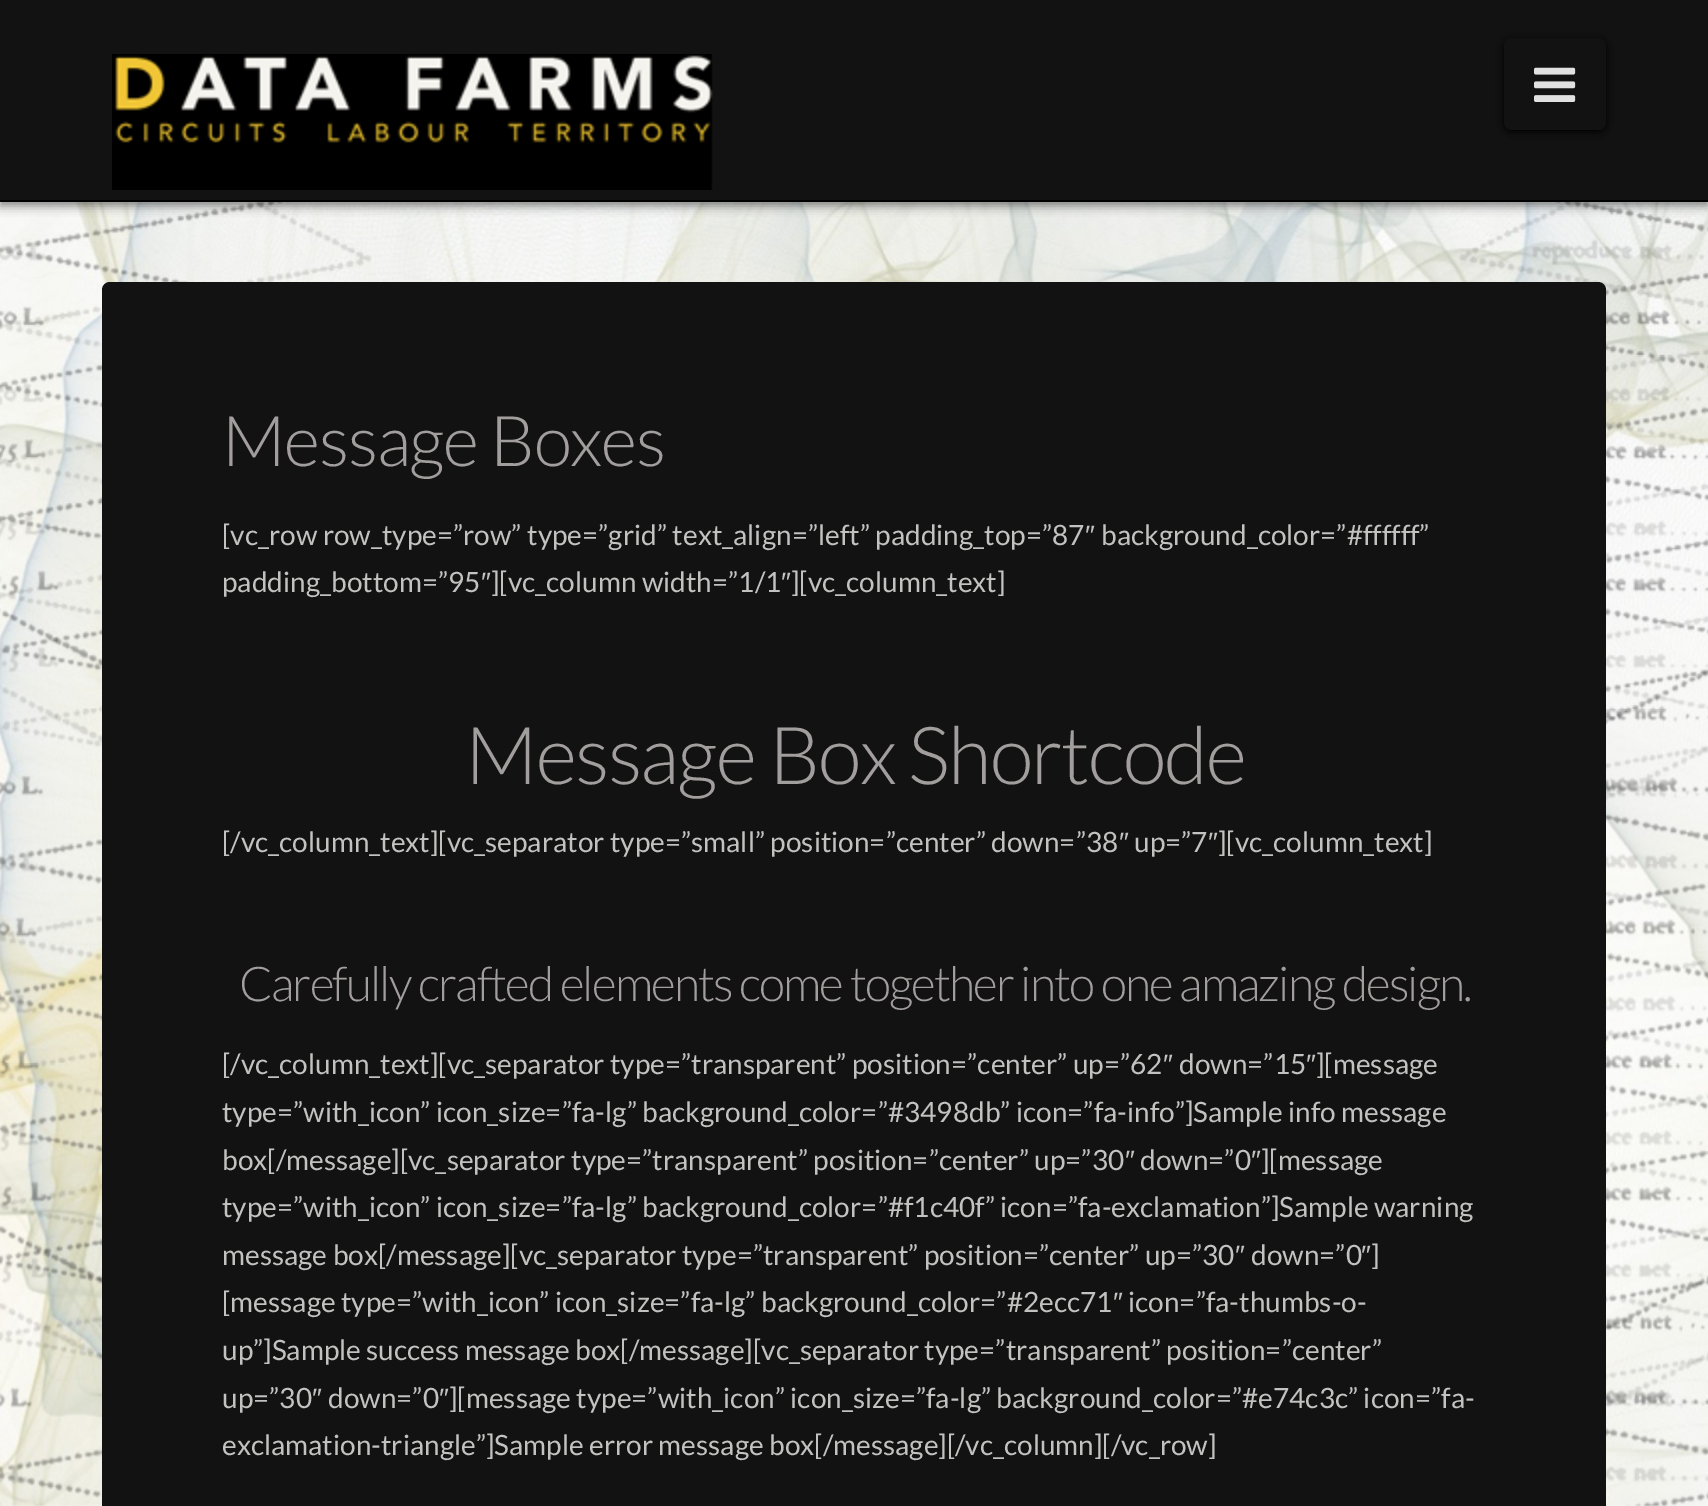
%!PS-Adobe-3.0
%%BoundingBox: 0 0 1708 1506
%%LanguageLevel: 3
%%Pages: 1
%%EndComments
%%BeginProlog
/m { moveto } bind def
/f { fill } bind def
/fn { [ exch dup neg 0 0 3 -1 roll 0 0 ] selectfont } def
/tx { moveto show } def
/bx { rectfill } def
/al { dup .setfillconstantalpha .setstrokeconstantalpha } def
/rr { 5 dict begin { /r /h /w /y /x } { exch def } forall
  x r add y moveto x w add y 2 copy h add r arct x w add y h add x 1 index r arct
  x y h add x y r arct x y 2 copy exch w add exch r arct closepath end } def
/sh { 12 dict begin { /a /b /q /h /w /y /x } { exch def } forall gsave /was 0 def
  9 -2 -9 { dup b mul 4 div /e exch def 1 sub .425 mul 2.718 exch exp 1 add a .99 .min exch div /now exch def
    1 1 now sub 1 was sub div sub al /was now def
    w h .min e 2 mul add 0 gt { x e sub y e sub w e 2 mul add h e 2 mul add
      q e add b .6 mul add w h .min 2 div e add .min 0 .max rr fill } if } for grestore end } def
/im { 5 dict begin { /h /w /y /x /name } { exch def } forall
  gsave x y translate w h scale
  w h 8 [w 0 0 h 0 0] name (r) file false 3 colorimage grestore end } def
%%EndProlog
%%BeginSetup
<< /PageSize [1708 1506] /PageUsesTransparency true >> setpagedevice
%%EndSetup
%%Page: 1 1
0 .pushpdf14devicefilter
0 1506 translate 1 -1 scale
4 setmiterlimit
1 setgray
0 0 1708 1506 bx
(image0.raw) 0 202 1708 1304 im
0 setgray
0 4 1708 202 0 5 0.47 sh
0.071 setgray
0 0 1708 200 bx
0 setgray
0 200 1708 2 bx
(image1.raw) 112 54 601 136 im
1504 40 102 92 8 4 1 sh
0.071 setgray
1504 38 102 92 8 rr f
(image2.raw) 1534 67 42 35 im
102 282 1504 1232 8 rr f
/Lato-Light 70 fn
0.639 0.62 0.62 setrgbcolor
222 466 m -1.25 0 (Message Boxes) ashow
/Lato-Regular 28 fn
0.761 0.761 0.757 setrgbcolor
([vc_row row_type=”row” type=”grid” text_align=”left” padding_top=”87) 222 545 tx
/LiberationSans-Regular 28 fn
(″) 1085 545 tx
/Lato-Regular 28 fn
(background_color=”#ffffff”) 1101 545 tx
(padding_bottom=”95) 222 592 tx
/LiberationSans-Regular 28 fn
(″) 481 592 tx
/Lato-Regular 28 fn
(][vc_column width=”1/1) 491 592 tx
/LiberationSans-Regular 28 fn
(″) 781 592 tx
/Lato-Regular 28 fn
(][vc_column_text]) 791 592 tx
/Lato-Light 80 fn
0.639 0.62 0.62 setrgbcolor
465 784 m -1.8 0 (Message Box Shortcode) ashow
/Lato-Regular 28 fn
0.761 0.761 0.757 setrgbcolor
([/vc_column_text][vc_separator type=”small” position=”center” down=”38) 222 852 tx
/LiberationSans-Regular 28 fn
(″) 1119 852 tx
/Lato-Regular 28 fn
(up=”7) 1134 852 tx
/LiberationSans-Regular 28 fn
(″) 1208 852 tx
/Lato-Regular 28 fn
(][vc_column_text]) 1218 852 tx
/Lato-Light 48 fn
0.639 0.62 0.62 setrgbcolor
239 1001 m -1.87 0 (Carefully crafted elements come together into one amazing design.) ashow
/Lato-Regular 28 fn
0.761 0.761 0.757 setrgbcolor
([/vc_column_text][vc_separator type=”transparent” position=”center” up=”62) 222 1074 tx
/LiberationSans-Regular 28 fn
(″) 1163 1074 tx
/Lato-Regular 28 fn
(down=”15) 1179 1074 tx
/LiberationSans-Regular 28 fn
(″) 1306 1074 tx
/Lato-Regular 28 fn
(][message) 1316 1074 tx
(type=”with_icon” icon_size=”fa-lg” background_color=”#3498db” icon=”fa-info”]Sample info message) 222 1122 tx
(box[/message][vc_separator type=”transparent” position=”center” up=”30) 222 1170 tx
/LiberationSans-Regular 28 fn
(″) 1125 1170 tx
/Lato-Regular 28 fn
(down=”0) 1140 1170 tx
/LiberationSans-Regular 28 fn
(″) 1251 1170 tx
/Lato-Regular 28 fn
(][message) 1261 1170 tx
(type=”with_icon” icon_size=”fa-lg” background_color=”#f1c40f” icon=”fa-exclamation”]Sample warning) 222 1217 tx
(message box[/message][vc_separator type=”transparent” position=”center” up=”30) 222 1265 tx
/LiberationSans-Regular 28 fn
(″) 1235 1265 tx
/Lato-Regular 28 fn
(down=”0) 1251 1265 tx
/LiberationSans-Regular 28 fn
(″) 1361 1265 tx
/Lato-Regular 28 fn
(]) 1371 1265 tx
([message type=”with_icon” icon_size=”fa-lg” background_color=”#2ecc71) 222 1312 tx
/LiberationSans-Regular 28 fn
(″) 1113 1312 tx
/Lato-Regular 28 fn
(icon=”fa-thumbs-o-) 1128 1312 tx
(up”]Sample success message box[/message][vc_separator type=”transparent” position=”center”) 222 1360 tx
(up=”30) 222 1408 tx
/LiberationSans-Regular 28 fn
(″) 312 1408 tx
/Lato-Regular 28 fn
(down=”0) 328 1408 tx
/LiberationSans-Regular 28 fn
(″) 439 1408 tx
/Lato-Regular 28 fn
(][message type=”with_icon” icon_size=”fa-lg” background_color=”#e74c3c” icon=”fa-) 449 1408 tx
(exclamation-triangle”]Sample error message box[/message][/vc_column][/vc_row]) 222 1455 tx
.poppdf14devicefilter showpage
%%EOF
